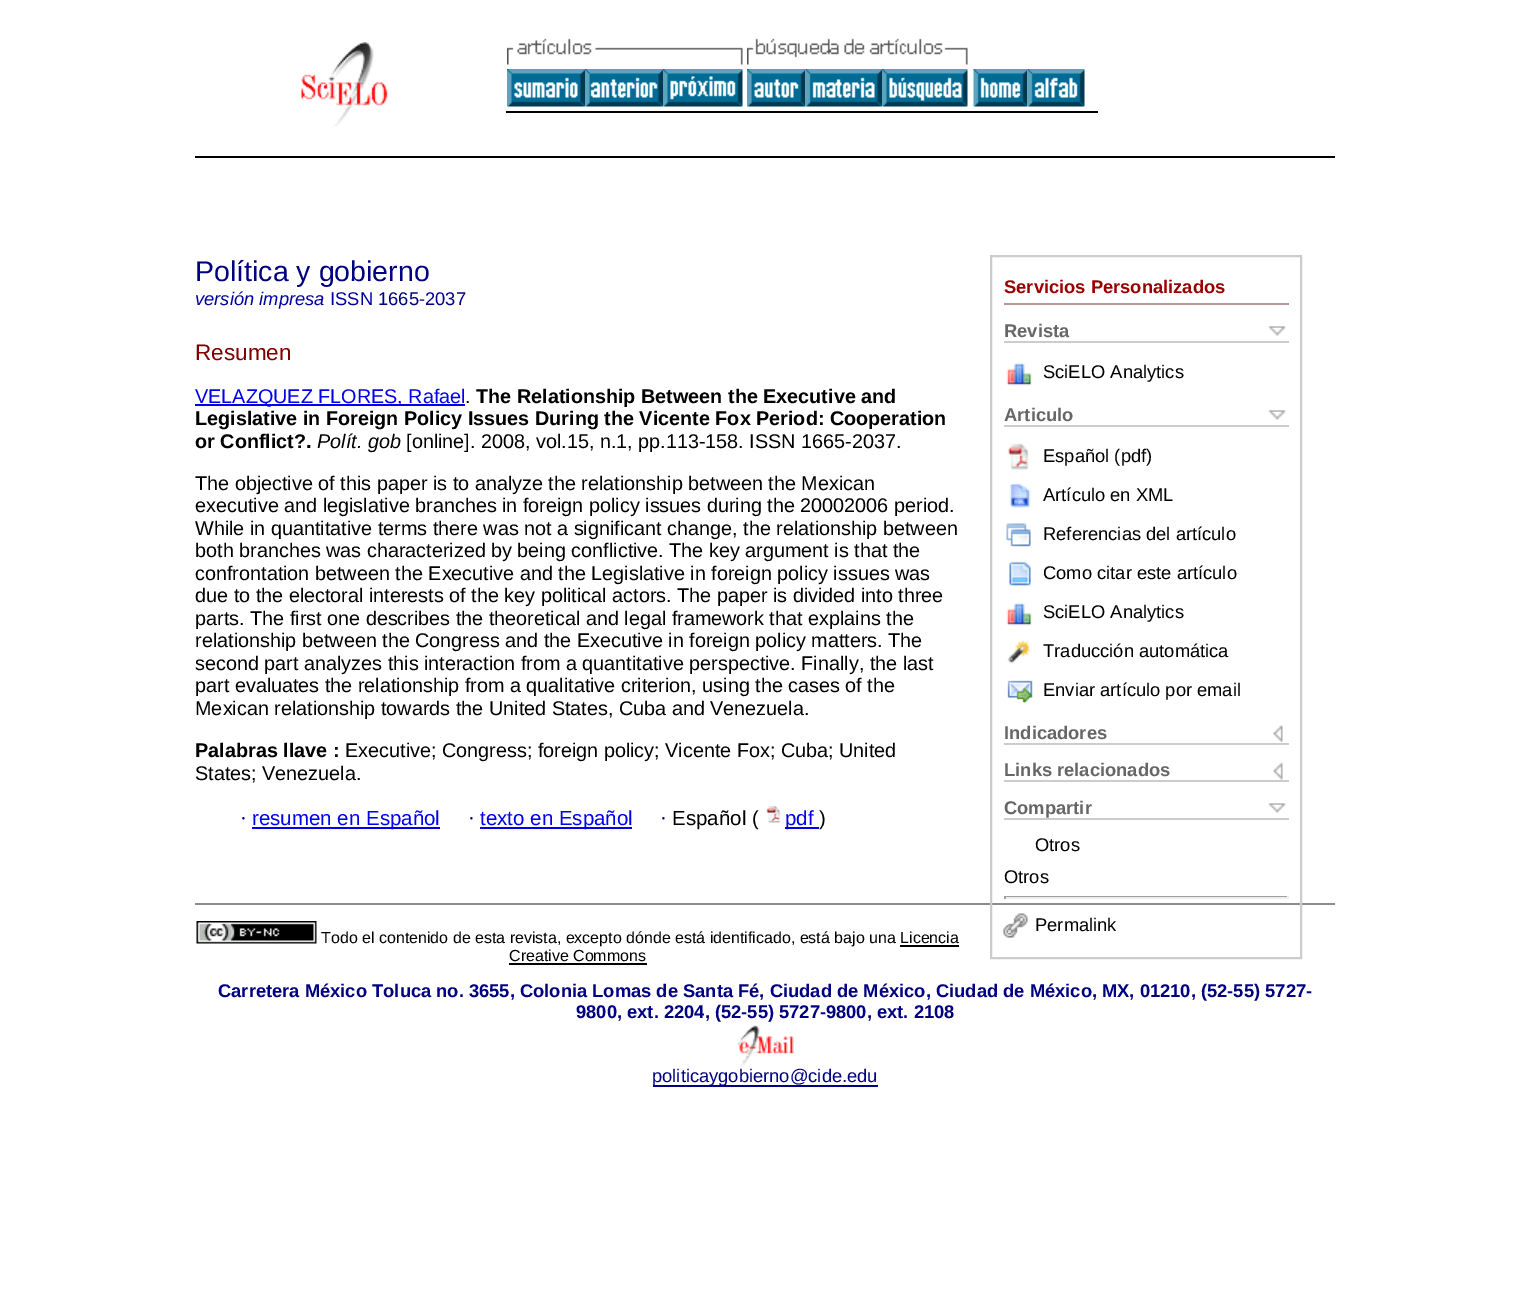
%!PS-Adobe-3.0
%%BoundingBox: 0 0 1529 1313
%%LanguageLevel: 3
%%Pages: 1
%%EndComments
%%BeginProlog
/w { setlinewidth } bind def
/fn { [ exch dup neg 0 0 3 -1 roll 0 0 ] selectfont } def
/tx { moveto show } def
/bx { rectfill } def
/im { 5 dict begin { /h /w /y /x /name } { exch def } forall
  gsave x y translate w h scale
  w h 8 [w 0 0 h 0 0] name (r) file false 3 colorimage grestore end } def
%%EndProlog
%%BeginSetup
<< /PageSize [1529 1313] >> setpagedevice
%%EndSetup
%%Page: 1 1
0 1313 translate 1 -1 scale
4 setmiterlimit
1 setgray
0 0 1529 1313 bx
0 setgray
195 156 1140 2 bx
(image0.raw) 301 42 87 86 im
506 111 592 2 bx
(image1.raw) 507 38 236 27 im
(image2.raw) 747 38 221 27 im
(image3.raw) 507 69 78 38 im
(image4.raw) 585 69 78 38 im
(image5.raw) 663 69 80 38 im
(image6.raw) 747 69 59 38 im
(image7.raw) 805 69 77 38 im
(image8.raw) 882 69 86 38 im
(image9.raw) 973 69 55 38 im
(image10.raw) 1027 69 58 38 im
0.553 setgray
195 903 1140 2 bx
/LiberationSans-Regular 28.5 fn
0 0 0.502 setrgbcolor
(Política y gobierno) 195 281 tx
/LiberationSans-Italic 18.35 fn
0 0 0.627 setrgbcolor
(versión impresa) 195 305 tx
/LiberationSans-Regular 18.35 fn
(ISSN) 330 305 tx
0 0 0.502 setrgbcolor
(1665-2037) 378 305 tx
0.8 setgray
2 w
991 256 310 702 rectstroke
0.745 0.584 0.584 setrgbcolor
1004 303 285 2 bx
/LiberationSans-Bold 18.35 fn
0.6 0 0 setrgbcolor
(Servicios Personalizados) 1004 293 tx
(image11.raw) 1268 326 18 10 im
0.8 setgray
1004 341 285 2 bx
0.4 setgray
(Revista) 1004 337 tx
(image12.raw) 1006 363 26 23 im
/LiberationSans-Regular 18.35 fn
0 setgray
(SciELO Analytics) 1043 378 tx
(image11.raw) 1268 410 18 10 im
0.8 setgray
1004 425 285 2 bx
/LiberationSans-Bold 18.35 fn
0.4 setgray
(Articulo) 1004 421 tx
(image13.raw) 1007 443 22 27 im
/LiberationSans-Regular 18.35 fn
0 setgray
(Español \(pdf\)) 1043 462 tx
(image14.raw) 1009 483 22 25 im
(Artículo en XML) 1043 501 tx
(image15.raw) 1006 523 25 24 im
(Referencias del artículo) 1043 540 tx
(image16.raw) 1009 561 23 26 im
(Como citar este artículo) 1043 579 tx
(image12.raw) 1006 603 26 23 im
(SciELO Analytics) 1043 618 tx
(image17.raw) 1007 640 24 24 im
(Traducción automática) 1043 657 tx
(image18.raw) 1004 680 31 23 im
(Enviar artículo por email) 1043 696 tx
(image19.raw) 1273 725 10 17 im
0.8 setgray
1004 743 285 2 bx
/LiberationSans-Bold 18.35 fn
0.4 setgray
(Indicadores) 1004 739 tx
(image20.raw) 1273 762 10 18 im
0.8 setgray
1004 780 285 2 bx
0.4 setgray
(Links relacionados) 1004 776 tx
(image11.raw) 1268 803 18 10 im
0.8 setgray
1004 818 285 2 bx
0.4 setgray
(Compartir) 1004 814 tx
/LiberationSans-Regular 18.35 fn
0 setgray
(Otros) 1035 851 tx
(Otros) 1004 883 tx
0.624 setgray
1004 896 285 1 bx
0.933 setgray
1287 896 2 3 bx
1004 897 285 2 bx
0.624 setgray
1004 896 2 3 bx
(image21.raw) 1003 913 25 25 im
0 setgray
(Permalink) 1035 931 tx
/LiberationSans-Regular 22.5 fn
0.502 0 0 setrgbcolor
(Resumen) 195 360 tx
0 0 0.933 setrgbcolor
195 404 270 2 bx
/LiberationSans-Regular 19.8 fn
(VELAZQUEZ FLORES, Rafael) 195 403 tx
0 setgray
(.) 465 403 tx
/LiberationSans-Bold 19.8 fn
(The Relationship Between the Executive and) 476 403 tx
(Legislative in Foreign Policy Issues During the Vicente Fox Period: Cooperation) 195 425 tx
(or Conflict?.) 195 448 tx
/LiberationSans-Italic 19.8 fn
(Polít. gob) 317 448 tx
/LiberationSans-Regular 19.8 fn
([online]. 2008, vol.15, n.1, pp.113-158. ISSN 1665-2037.) 406 448 tx
(The objective of this paper is to analyze the relationship between the Mexican) 195 490 tx
(executive and legislative branches in foreign policy issues during the 20002006 period.) 195 512 tx
(While in quantitative terms there was not a significant change, the relationship between) 195 535 tx
(both branches was characterized by being conflictive. The key argument is that the) 195 557 tx
(confrontation between the Executive and the Legislative in foreign policy issues was) 195 580 tx
(due to the electoral interests of the key political actors. The paper is divided into three) 195 602 tx
(parts. The first one describes the theoretical and legal framework that explains the) 195 625 tx
(relationship between the Congress and the Executive in foreign policy matters. The) 195 647 tx
(second part analyzes this interaction from a quantitative perspective. Finally, the last) 195 670 tx
(part evaluates the relationship from a qualitative criterion, using the cases of the) 195 692 tx
(Mexican relationship towards the United States, Cuba and Venezuela.) 195 715 tx
/LiberationSans-Bold 19.8 fn
(Palabras llave :) 195 757 tx
/LiberationSans-Regular 19.8 fn
(Executive; Congress; foreign policy; Vicente Fox; Cuba; United) 345 757 tx
(States; Venezuela.) 195 780 tx
/LiberationSerif-Regular 20.5 fn
0 0 0.502 setrgbcolor
(·) 240 825 tx
0 0 0.933 setrgbcolor
252 827 188 2 bx
/LiberationSans-Regular 20.5 fn
(resumen en Español) 252 825 tx
/LiberationSerif-Regular 20.5 fn
0 0 0.502 setrgbcolor
(·) 468 825 tx
0 0 0.933 setrgbcolor
480 827 152 2 bx
/LiberationSans-Regular 20.5 fn
(texto en Español) 480 825 tx
/LiberationSerif-Regular 20.5 fn
0 0 0.502 setrgbcolor
(·) 660 825 tx
/LiberationSans-Regular 20.5 fn
0 setgray
(Español \() 672 825 tx
(image22.raw) 766 806 15 17 im
0 0 0.933 setrgbcolor
785 827 34 2 bx
(pdf) 785 825 tx
0 setgray
(\)) 819 825 tx
(image23.raw) 196 921 121 23 im
/LiberationSans-Regular 16 fn
(Todo el contenido de esta revista, excepto dónde está identificado, está bajo una Licencia) 321 943 tx
(Creative Commons) 509 961 tx
900 945 59 2 bx
509 963 138 2 bx
/LiberationSans-Bold 18.35 fn
0 0 0.502 setrgbcolor
(Carretera México Toluca no. 3655, Colonia Lomas de Santa Fé, Ciudad de México, Ciudad de México, MX, 01210, \(52-55\) 5727-) 218 997 tx
(9800, ext. 2204, \(52-55\) 5727-9800, ext. 2108) 576 1018 tx
(image24.raw) 737 1025 58 42 im
653 1085 225 2 bx
/LiberationSans-Regular 18.35 fn
(politicaygobierno@cide.edu) 652 1082 tx
showpage
%%EOF
